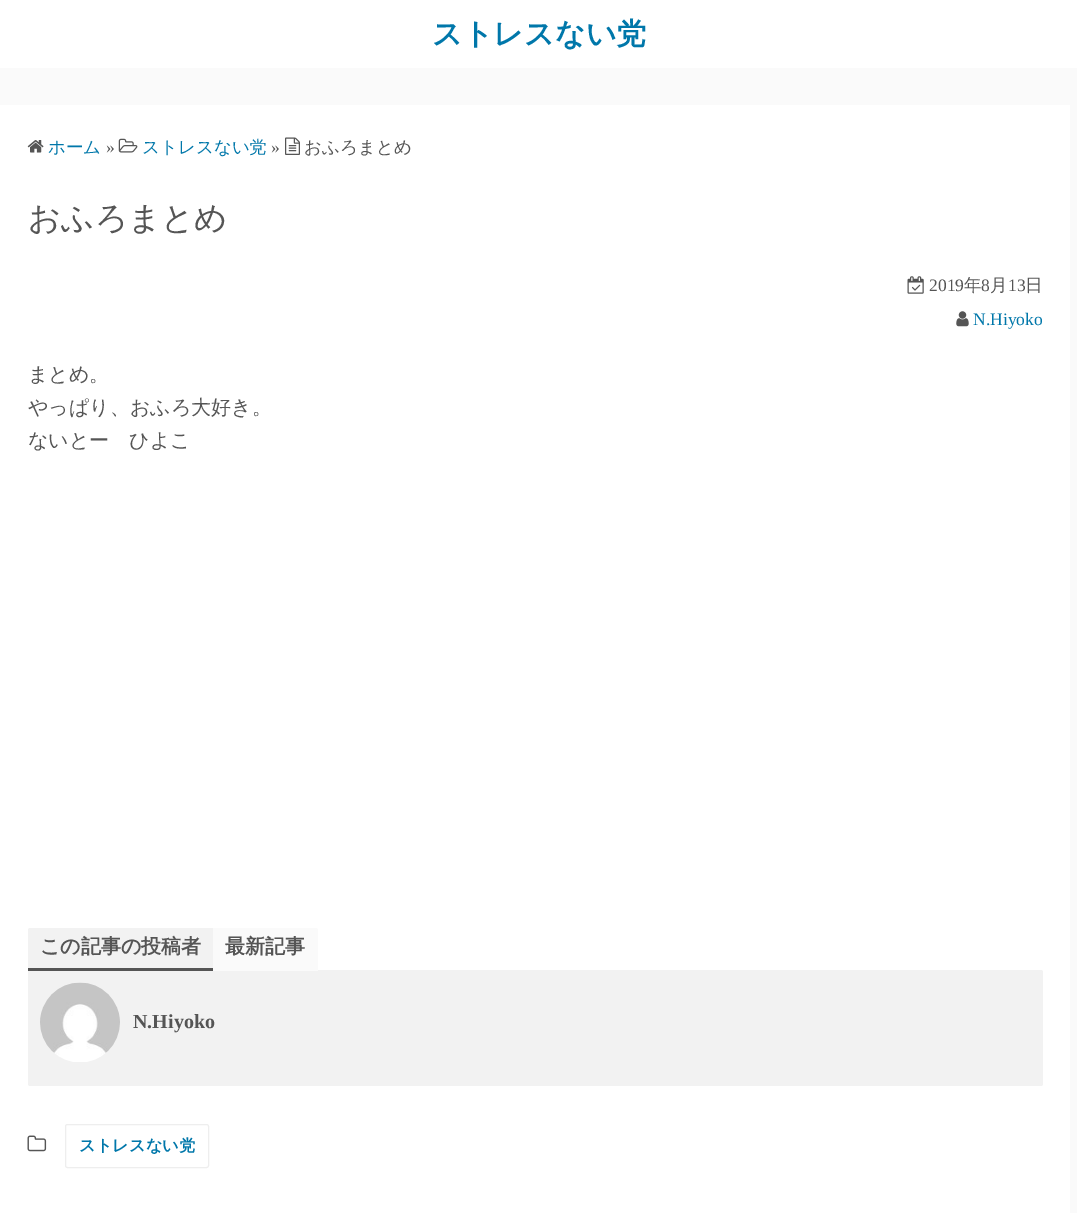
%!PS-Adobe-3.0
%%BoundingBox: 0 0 1077 1213
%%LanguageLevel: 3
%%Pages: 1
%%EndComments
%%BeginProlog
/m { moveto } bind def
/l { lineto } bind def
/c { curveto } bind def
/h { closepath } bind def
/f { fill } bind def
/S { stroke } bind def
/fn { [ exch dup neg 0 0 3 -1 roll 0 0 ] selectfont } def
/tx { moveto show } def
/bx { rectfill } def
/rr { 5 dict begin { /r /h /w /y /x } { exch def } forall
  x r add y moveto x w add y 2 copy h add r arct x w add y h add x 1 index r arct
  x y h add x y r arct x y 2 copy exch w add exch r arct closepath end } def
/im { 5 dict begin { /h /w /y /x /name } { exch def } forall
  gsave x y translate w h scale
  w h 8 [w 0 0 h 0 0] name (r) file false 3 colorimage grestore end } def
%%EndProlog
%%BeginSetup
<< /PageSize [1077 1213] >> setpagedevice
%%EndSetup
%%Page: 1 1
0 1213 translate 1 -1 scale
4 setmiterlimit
0.98 setgray
0 0 1077 1213 bx
1 setgray
0 0 1077 68 bx
/WenQuanYiZenHei-Bold 30 fn
0 0.467 0.667 setrgbcolor
(ストレスない党) 432 44 tx
1 setgray
0 105 1070 1108 bx
(image0.raw) 27 140 17 13 im
/WenQuanYiZenHei-Medium 17.5 fn
0 0.467 0.667 setrgbcolor
(ホーム) 48 153 tx
/LiberationSerif-Regular 17.5 fn
0.333 setgray
(») 106 153 tx
(image1.raw) 118 138 20 15 im
/WenQuanYiZenHei-Medium 17.5 fn
0 0.467 0.667 setrgbcolor
(ストレスない党) 142 153 tx
/LiberationSerif-Regular 17.5 fn
0.333 setgray
(») 271 153 tx
(image2.raw) 285 137 15 18 im
/WenQuanYiZenHei-Medium 17.5 fn
(おふろまとめ) 304 153 tx
/WenQuanYiZenHei-Medium 32.5 fn
(おふろまとめ) 28 229 tx
(image3.raw) 907 276 17 18 im
/LiberationSerif-Regular 17.5 fn
(2019) 929 291 tx
/WenQuanYiZenHei-Medium 17.5 fn
(年) 964 291 tx
/LiberationSerif-Regular 17.5 fn
(8) 981 291 tx
/WenQuanYiZenHei-Medium 17.5 fn
(月) 990 291 tx
/LiberationSerif-Regular 17.5 fn
(13) 1008 291 tx
/WenQuanYiZenHei-Medium 17.5 fn
(日) 1025 291 tx
(image4.raw) 956 311 13 16 im
/LiberationSerif-Regular 17.5 fn
0 0.467 0.667 setrgbcolor
(N.Hiyoko) 973 325 tx
/WenQuanYiZenHei-Medium 20 fn
0.333 setgray
(まとめ。) 28 381 tx
(やっぱり、おふろ大好き。) 28 414 tx
(ないとー　ひよこ) 28 447 tx
0.949 setgray
30.5 928 m 214 928 l 214 970 l 28 970 l 28 930.5 l 28 929 29 928 30.5 928 c h f
28 970 m 1040.5 970 l 1042 970 1043 971 1043 972.5 c 1043 1083.5 l 1043 1085 1042 1086 1040.5 1086 c 30.5 1086 l 29 1086 28 1085 28 1083.5 c h f
0.333 setgray
28 968 186 3 bx
/WenQuanYiZenHei-Bold 20 fn
(この記事の投稿者) 40 953 tx
0.98 setgray
213 928 m 315.5 928 l 317 928 318 929 318 930.5 c 318 970 l 213 970 l h f
213 970 105 1 bx
0.333 setgray
(最新記事) 225 953 tx
(image5.raw) 40 982 80 80 im
/LiberationSerif-Bold 20 fn
(N.Hiyoko) 133 1028 tx
(image6.raw) 27 1135 20 17 im
0.933 setgray
65.5 1124.5 143 43 2 rr S
/WenQuanYiZenHei-Bold 16.25 fn
0 0.467 0.667 setrgbcolor
(ストレスない党) 79 1151 tx
showpage
%%EOF
